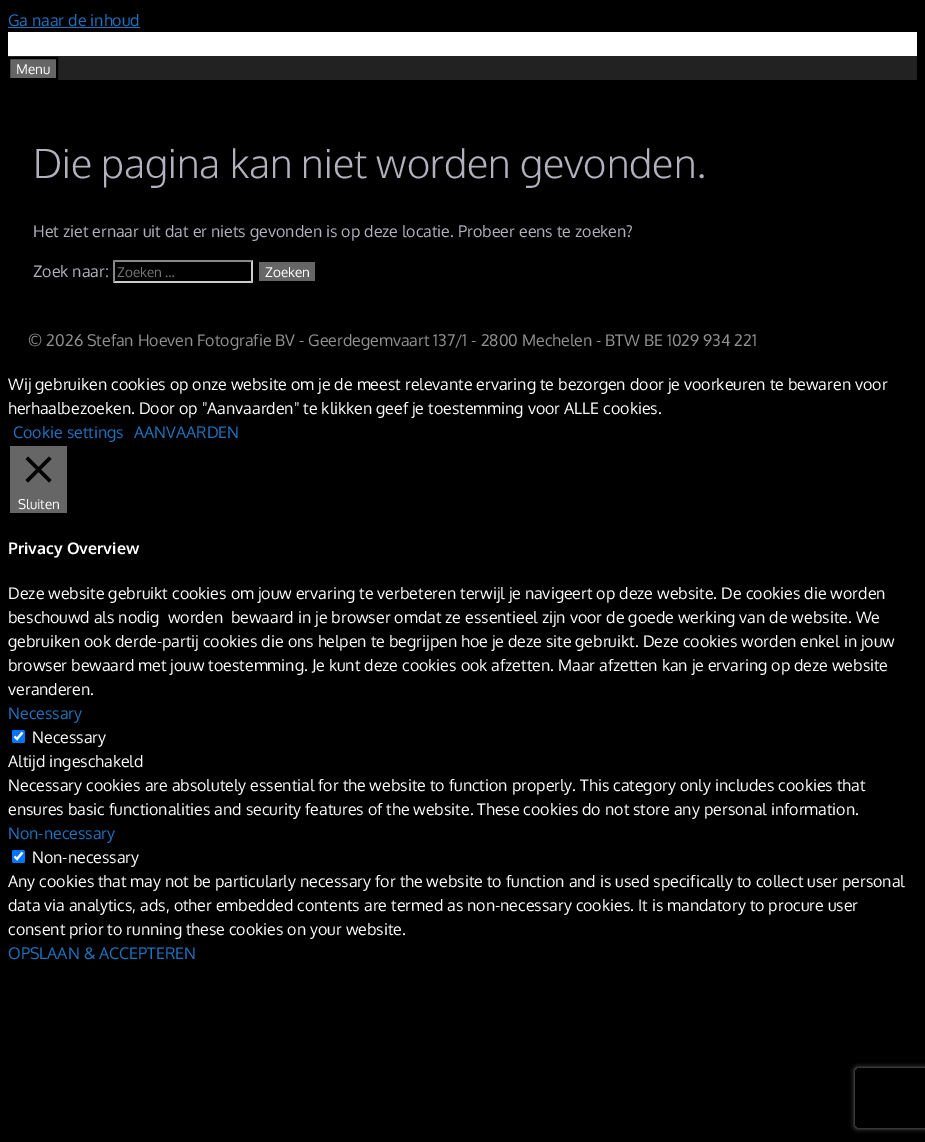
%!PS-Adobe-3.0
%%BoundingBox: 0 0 925 1142
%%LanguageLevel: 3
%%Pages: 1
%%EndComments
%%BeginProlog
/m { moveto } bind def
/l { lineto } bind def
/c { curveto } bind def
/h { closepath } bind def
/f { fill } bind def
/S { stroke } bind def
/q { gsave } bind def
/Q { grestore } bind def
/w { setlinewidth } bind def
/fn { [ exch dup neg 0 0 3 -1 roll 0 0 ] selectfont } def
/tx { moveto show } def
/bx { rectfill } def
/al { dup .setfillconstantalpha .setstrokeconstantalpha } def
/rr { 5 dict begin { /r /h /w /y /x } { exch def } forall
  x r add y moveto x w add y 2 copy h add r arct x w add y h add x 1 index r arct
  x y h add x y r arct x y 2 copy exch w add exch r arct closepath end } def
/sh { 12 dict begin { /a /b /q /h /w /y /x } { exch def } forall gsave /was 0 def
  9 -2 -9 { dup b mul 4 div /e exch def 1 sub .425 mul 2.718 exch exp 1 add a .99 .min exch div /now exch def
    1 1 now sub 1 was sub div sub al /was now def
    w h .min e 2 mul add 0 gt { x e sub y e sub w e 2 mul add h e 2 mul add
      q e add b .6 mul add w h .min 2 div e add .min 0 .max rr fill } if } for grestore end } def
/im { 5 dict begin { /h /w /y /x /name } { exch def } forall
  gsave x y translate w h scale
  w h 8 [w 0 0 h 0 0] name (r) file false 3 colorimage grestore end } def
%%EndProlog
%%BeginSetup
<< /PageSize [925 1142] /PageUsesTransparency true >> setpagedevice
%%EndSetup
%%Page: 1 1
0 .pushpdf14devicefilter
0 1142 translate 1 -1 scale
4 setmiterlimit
0 setgray
0 0 925 1142 bx
/Oxygen-Regular 16 fn
0.118 0.451 0.745 setrgbcolor
(Ga naar de inhoud) 8 26 tx
8 27 132 1 bx
1 setgray
8 32 909 24 bx
0.133 setgray
8 56 909 24 bx
0.4 setgray
9 58 m 57 58 l 57 79 l 9 79 l h q f Q
0 setgray
2 w
S
/Oxygen-Regular 13.5 fn
1 setgray
(Menu) 16 74 tx
/Oxygen-Light 40 fn
0.698 0.698 0.745 setrgbcolor
(Die pagina kan niet worden gevonden.) 33 178 tx
/Oxygen-Regular 16 fn
(Het ziet ernaar uit dat er niets gevonden is op deze locatie. Probeer eens te zoeken?) 33 237 tx
(Zoek naar:) 33 277 tx
0.533 setgray
113 260 m 253 260 l 251 262 l 115 262 l h f
0.8 setgray
253 260 m 253 283 l 251 281 l 251 262 l h f
253 283 m 113 283 l 115 281 l 251 281 l h f
0.533 setgray
113 283 m 113 260 l 115 262 l 115 281 l h f
/Oxygen-Regular 13.5 fn
0.459 setgray
(Zoeken …) 117 277 tx
0.4 setgray
259 262 56 19 bx
1 setgray
(Zoeken) 265 277 tx
/Oxygen-Regular 16 fn
0.573 0.569 0.569 setrgbcolor
(© 2026 Stefan Hoeven Fotografie BV - Geerdegemvaart 137/1 - 2800 Mechelen - BTW BE 1029 934 221) 28 346 tx
1 setgray
(Wij gebruiken cookies op onze website om je de meest relevante ervaring te bezorgen door je voorkeuren te bewaren voor) 8 390 tx
(herhaalbezoeken. Door op "Aanvaarden" te klikken geef je toestemming voor ALLE cookies.) 8 414 tx
0.118 0.451 0.745 setrgbcolor
(Cookie settings) 13 438 tx
(AANVAARDEN) 134 438 tx
0.4 setgray
10 446 57 67 bx
(image0.raw) 25 456 27 27 im
/Oxygen-Regular 13.5 fn
1 setgray
(Sluiten) 18 509 tx
/Oxygen-Bold 16 fn
(Privacy Overview) 8 554 tx
/Oxygen-Regular 16 fn
(Deze website gebruikt cookies om jouw ervaring te verbeteren terwijl je navigeert op deze website. De cookies die worden) 8 599 tx
(beschouwd als nodig  worden  bewaard in je browser omdat ze essentieel zijn voor de goede werking van de website. We) 8 623 tx
(gebruiken ook derde-partij cookies die ons helpen te begrijpen hoe je deze site gebruikt. Deze cookies worden enkel in jouw) 8 647 tx
(browser bewaard met jouw toestemming. Je kunt deze cookies ook afzetten. Maar afzetten kan je ervaring op deze website) 8 671 tx
(veranderen.) 8 695 tx
0.118 0.451 0.745 setrgbcolor
(Necessary) 8 719 tx
0 0.459 1 setrgbcolor
12 730 13 13 2 rr f
1 setgray
2.1 w
14.5 736.5 m 17 739 l 22.5 732.5 l S
(Necessary) 32 743 tx
(Altijd ingeschakeld) 8 767 tx
(Necessary cookies are absolutely essential for the website to function properly. This category only includes cookies that) 8 791 tx
(ensures basic functionalities and security features of the website. These cookies do not store any personal information.) 8 815 tx
0.118 0.451 0.745 setrgbcolor
(Non-necessary) 8 839 tx
0 0.459 1 setrgbcolor
12 850 13 13 2 rr f
1 setgray
14.5 856.5 m 17 859 l 22.5 852.5 l S
(Non-necessary) 32 863 tx
(Any cookies that may not be particularly necessary for the website to function and is used specifically to collect user personal) 8 887 tx
(data via analytics, ads, other embedded contents are termed as non-necessary cookies. It is mandatory to procure user) 8 911 tx
(consent prior to running these cookies on your website.) 8 935 tx
0.118 0.451 0.745 setrgbcolor
(OPSLAAN & ACCEPTEREN) 8 959 tx
q
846 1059 m 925 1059 l 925 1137 l 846 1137 l h 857 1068 m 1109 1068 l 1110 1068 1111 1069 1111 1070 c 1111 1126 l 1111 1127 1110 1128 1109 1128 c 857 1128 l 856 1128 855 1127 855 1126 c 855 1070 l 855 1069 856 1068 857 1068 c h eoclip newpath
0.502 setgray
855 1068 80 60 2 2.5 1 sh
Q
.poppdf14devicefilter showpage
%%EOF
